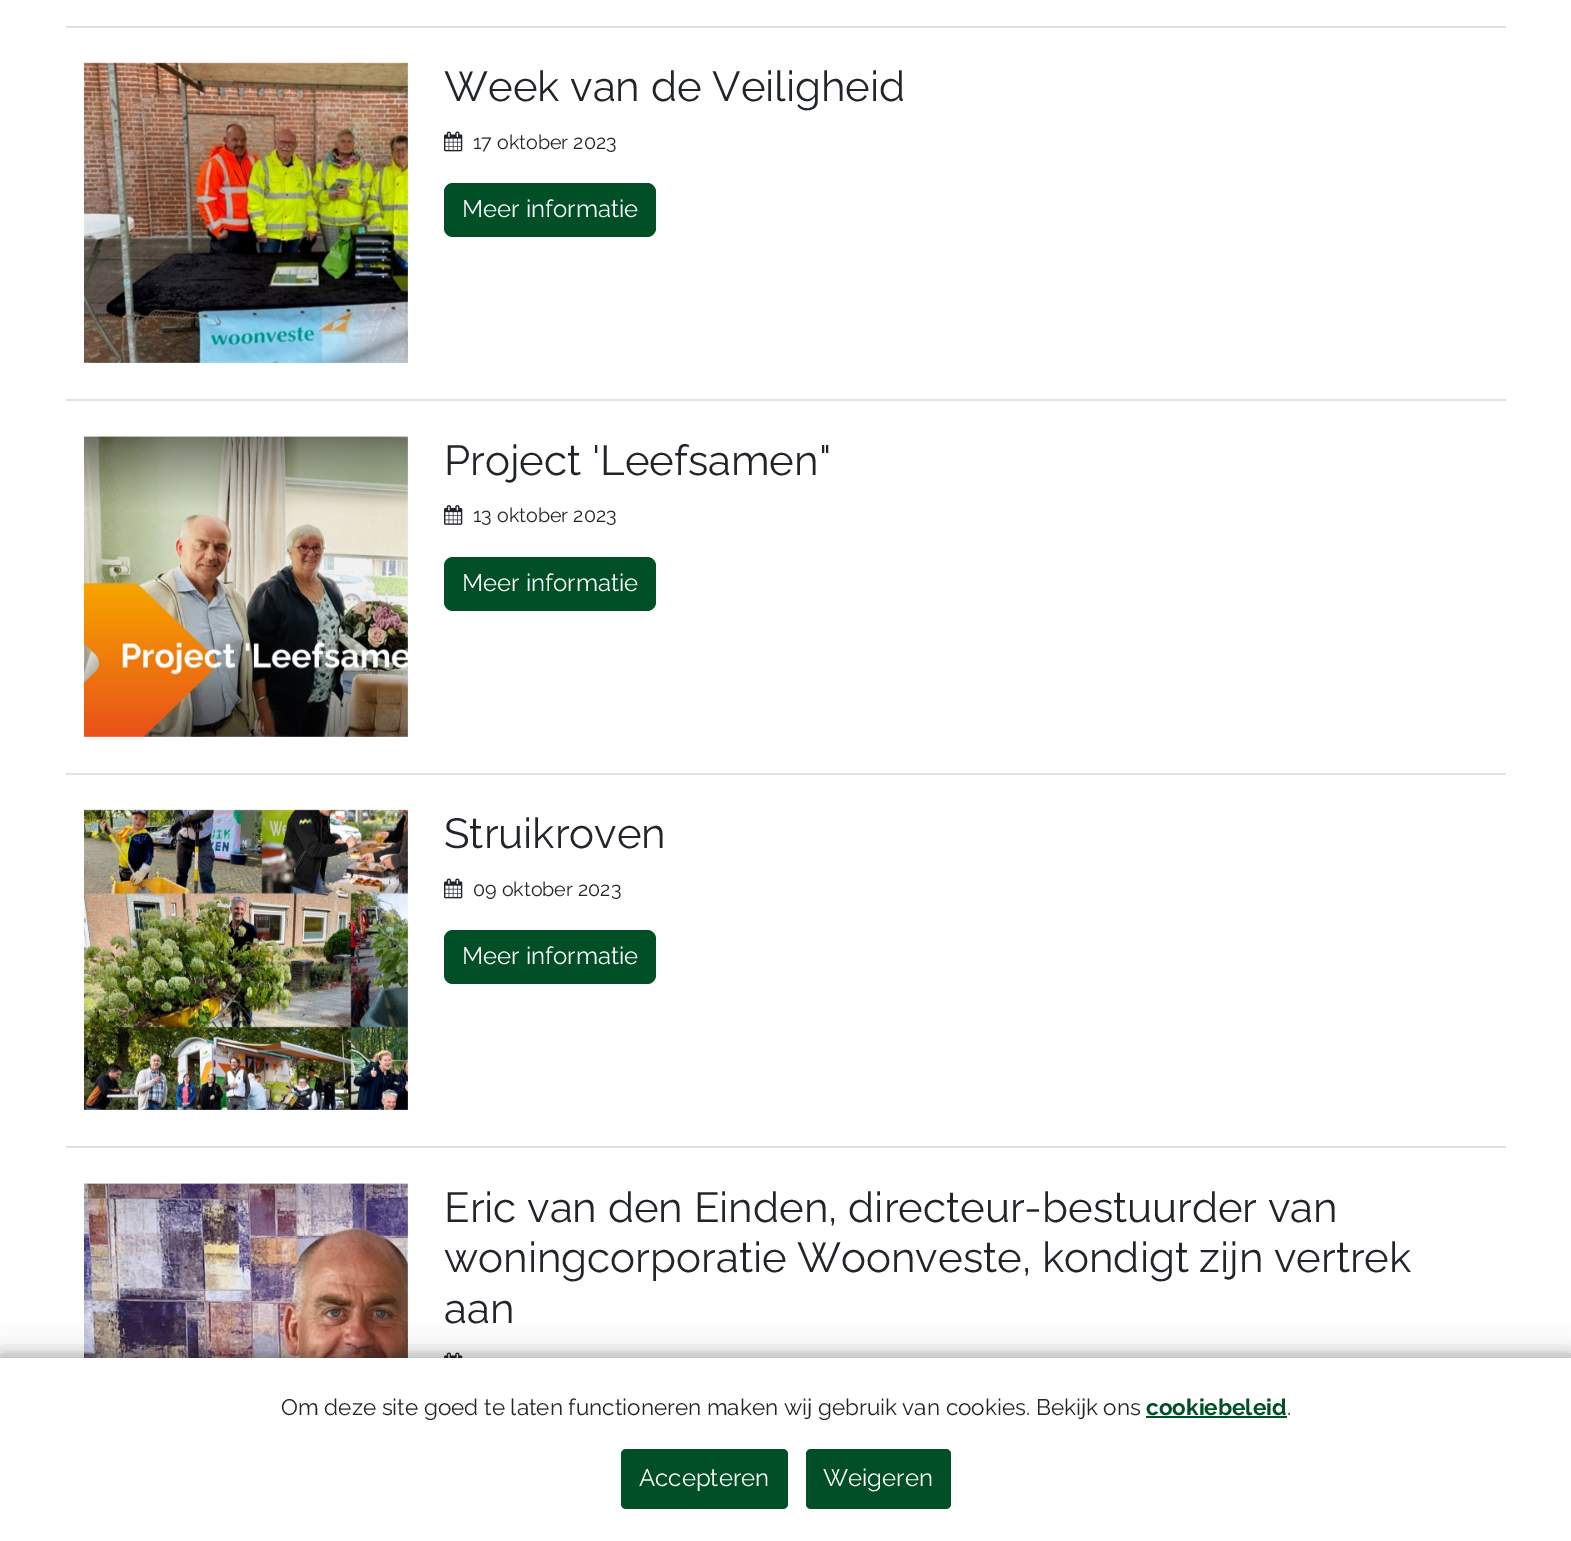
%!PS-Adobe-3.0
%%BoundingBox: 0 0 1571 1541
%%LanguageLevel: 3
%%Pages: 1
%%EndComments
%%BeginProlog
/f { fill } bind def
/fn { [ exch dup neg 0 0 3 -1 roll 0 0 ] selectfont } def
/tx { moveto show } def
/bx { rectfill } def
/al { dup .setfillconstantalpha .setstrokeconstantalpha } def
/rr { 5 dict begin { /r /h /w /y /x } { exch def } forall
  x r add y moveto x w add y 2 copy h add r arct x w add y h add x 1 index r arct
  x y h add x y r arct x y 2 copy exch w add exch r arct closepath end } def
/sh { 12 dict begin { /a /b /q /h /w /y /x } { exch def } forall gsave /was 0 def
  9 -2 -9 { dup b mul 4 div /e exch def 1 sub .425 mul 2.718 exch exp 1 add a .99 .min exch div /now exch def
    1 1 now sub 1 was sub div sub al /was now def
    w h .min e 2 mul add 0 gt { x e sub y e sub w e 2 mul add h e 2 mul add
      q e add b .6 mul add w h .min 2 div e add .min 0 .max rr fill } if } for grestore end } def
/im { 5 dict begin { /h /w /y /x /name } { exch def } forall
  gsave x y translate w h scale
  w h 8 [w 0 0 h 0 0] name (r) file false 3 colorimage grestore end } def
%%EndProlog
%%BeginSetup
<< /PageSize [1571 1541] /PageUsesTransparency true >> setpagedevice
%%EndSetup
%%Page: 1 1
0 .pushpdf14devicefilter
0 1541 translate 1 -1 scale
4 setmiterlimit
1 setgray
0 0 1571 1541 bx
0.871 0.886 0.902 setrgbcolor
66 26 1440 2 bx
66 399 1440 2 bx
(image0.raw) 84 62 324 301 im
/Raleway-Regular 42 fn
0.129 0.145 0.161 setrgbcolor
(Week van de Veiligheid) 444 101 tx
(image1.raw) 444 131 19 21 im
/Raleway-Regular 19.75 fn
(17 oktober 2023) 473 149 tx
0 0.31 0.149 setrgbcolor
444 183 212 54 9 rr f
/Raleway-Regular 24 fn
1 setgray
(Meer informatie) 462 217 tx
0.871 0.886 0.902 setrgbcolor
66 773 1440 2 bx
(image2.raw) 84 436 324 301 im
/Raleway-Regular 42 fn
0.129 0.145 0.161 setrgbcolor
(Project 'Leefsamen") 444 475 tx
(image3.raw) 444 505 19 20 im
/Raleway-Regular 19.75 fn
(13 oktober 2023) 473 522 tx
0 0.31 0.149 setrgbcolor
444 557 212 54 9 rr f
/Raleway-Regular 24 fn
1 setgray
(Meer informatie) 462 591 tx
0.871 0.886 0.902 setrgbcolor
66 1146 1440 2 bx
(image4.raw) 84 809 324 301 im
/Raleway-Regular 42 fn
0.129 0.145 0.161 setrgbcolor
(Struikroven) 444 848 tx
(image1.raw) 444 878 19 21 im
/Raleway-Regular 19.75 fn
(09 oktober 2023) 473 896 tx
0 0.31 0.149 setrgbcolor
444 930 212 54 9 rr f
/Raleway-Regular 24 fn
1 setgray
(Meer informatie) 462 964 tx
(image5.raw) 84 1183 324 175 im
/Raleway-Regular 42 fn
0.129 0.145 0.161 setrgbcolor
(Eric van den Einden, directeur-bestuurder van) 444 1222 tx
(woningcorporatie Woonveste, kondigt zijn vertrek) 444 1272 tx
(aan) 444 1323 tx
(image6.raw) 444 1352 19 6 im
0 setgray
0 1355 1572 184 0 15 0.19 sh
0 1355 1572 184 0 6 0.2 sh
1 setgray
0 1358 1571 183 bx
/Raleway-Regular 22.5 fn
0.129 0.145 0.161 setrgbcolor
(Om deze site goed te laten functioneren maken wij gebruik van cookies. Bekijk ons) 281 1415 tx
/Raleway-Bold 22.5 fn
0 0.31 0.149 setrgbcolor
(cookiebeleid) 1146 1415 tx
1146 1416 141 2 bx
/Raleway-Regular 22.5 fn
0.129 0.145 0.161 setrgbcolor
(.) 1287 1415 tx
0 0.31 0.149 setrgbcolor
621 1449 167 60 5 rr f
/Raleway-Regular 24 fn
1 setgray
(Accepteren) 639 1486 tx
0 0.31 0.149 setrgbcolor
806 1449 145 60 5 rr f
1 setgray
(Weigeren) 823 1486 tx
.poppdf14devicefilter showpage
%%EOF
